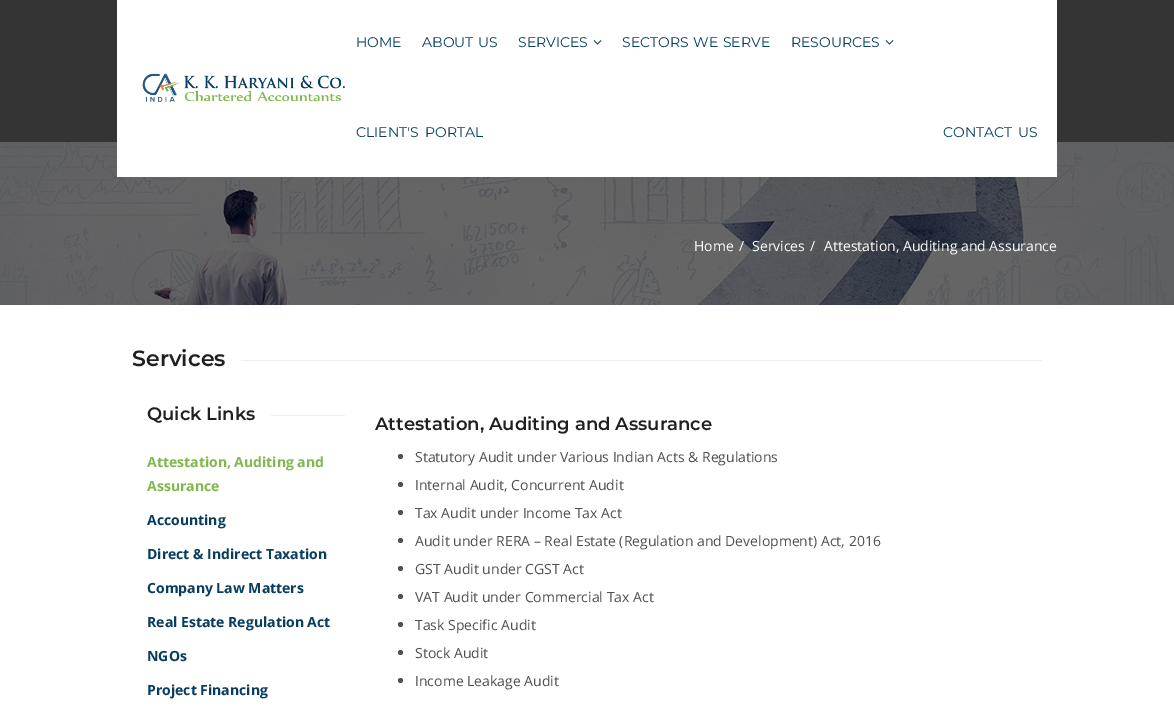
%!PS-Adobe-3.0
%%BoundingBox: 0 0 1174 706
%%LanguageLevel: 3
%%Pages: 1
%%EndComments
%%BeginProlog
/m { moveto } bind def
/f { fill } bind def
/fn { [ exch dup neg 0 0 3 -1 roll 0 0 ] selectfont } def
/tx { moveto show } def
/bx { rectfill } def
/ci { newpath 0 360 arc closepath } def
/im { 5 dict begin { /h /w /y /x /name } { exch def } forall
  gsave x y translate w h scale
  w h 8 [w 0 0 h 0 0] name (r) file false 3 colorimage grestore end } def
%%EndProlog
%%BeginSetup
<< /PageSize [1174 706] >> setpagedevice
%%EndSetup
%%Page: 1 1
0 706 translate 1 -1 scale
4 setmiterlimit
1 setgray
0 0 1174 706 bx
0.204 setgray
0 0 1174 142 bx
(image2.raw) 0 142 1174 163 im
1 setgray
117 0 940 177 bx
(image0.raw) 142 73 203 29 im
/Montserrat-Regular 14 fn
0.031 0.239 0.373 setrgbcolor
(HOME) 356 47 tx
422 47 m 1 0 32 (ABOUT US) widthshow
(SERVICES) 518 47 tx
(image1.raw) 593 40 9 5 im
622 47 m 1 0 32 (SECTORS WE SERVE) widthshow
(RESOURCES) 791 47 tx
(image1.raw) 885 40 9 5 im
356 137 m 3 0 32 (CLIENT'S PORTAL) widthshow
943 137 m 2 0 32 (CONTACT US) widthshow
/OpenSans-Regular 14 fn
1 setgray
(Home) 694 251 tx
(/) 739 251 tx
(Services) 752 251 tx
(/) 810 251 tx
(Attestation, Auditing and Assurance) 824 251 tx
/Montserrat-SemiBold 22 fn
0.125 setgray
(Services) 132 366 tx
0.933 setgray
241 360 801 1 bx
/Montserrat-SemiBold 18 fn
0.125 setgray
(Quick Links) 147 420 tx
0.933 setgray
271 415 74 1 bx
/OpenSans-Bold 14 fn
0.506 0.722 0.302 setrgbcolor
(Attestation, Auditing and) 147 467 tx
(Assurance) 147 491 tx
0.031 0.239 0.373 setrgbcolor
(Accounting) 147 525 tx
(Direct & Indirect Taxation) 147 559 tx
(Company Law Matters) 147 593 tx
(Real Estate Regulation Act) 147 627 tx
(NGOs) 147 661 tx
(Project Financing) 147 695 tx
/Montserrat-SemiBold 18 fn
0.125 setgray
(Attestation, Auditing and Assurance) 375 430 tx
0.314 setgray
400.5 456.5 2.5 ci f
/OpenSans-Regular 14 fn
(Statutory Audit under Various Indian Acts & Regulations) 415 462 tx
400.5 484.5 2.5 ci f
(Internal Audit, Concurrent Audit) 415 490 tx
400.5 512.5 2.5 ci f
(Tax Audit under Income Tax Act) 415 518 tx
400.5 540.5 2.5 ci f
(Audit under RERA – Real Estate \(Regulation and Development\) Act, 2016) 415 546 tx
400.5 568.5 2.5 ci f
(GST Audit under CGST Act) 415 574 tx
400.5 596.5 2.5 ci f
(VAT Audit under Commercial Tax Act) 415 602 tx
400.5 624.5 2.5 ci f
(Task Specific Audit) 415 630 tx
400.5 652.5 2.5 ci f
(Stock Audit) 415 658 tx
400.5 680.5 2.5 ci f
(Income Leakage Audit) 415 686 tx
showpage
%%EOF
